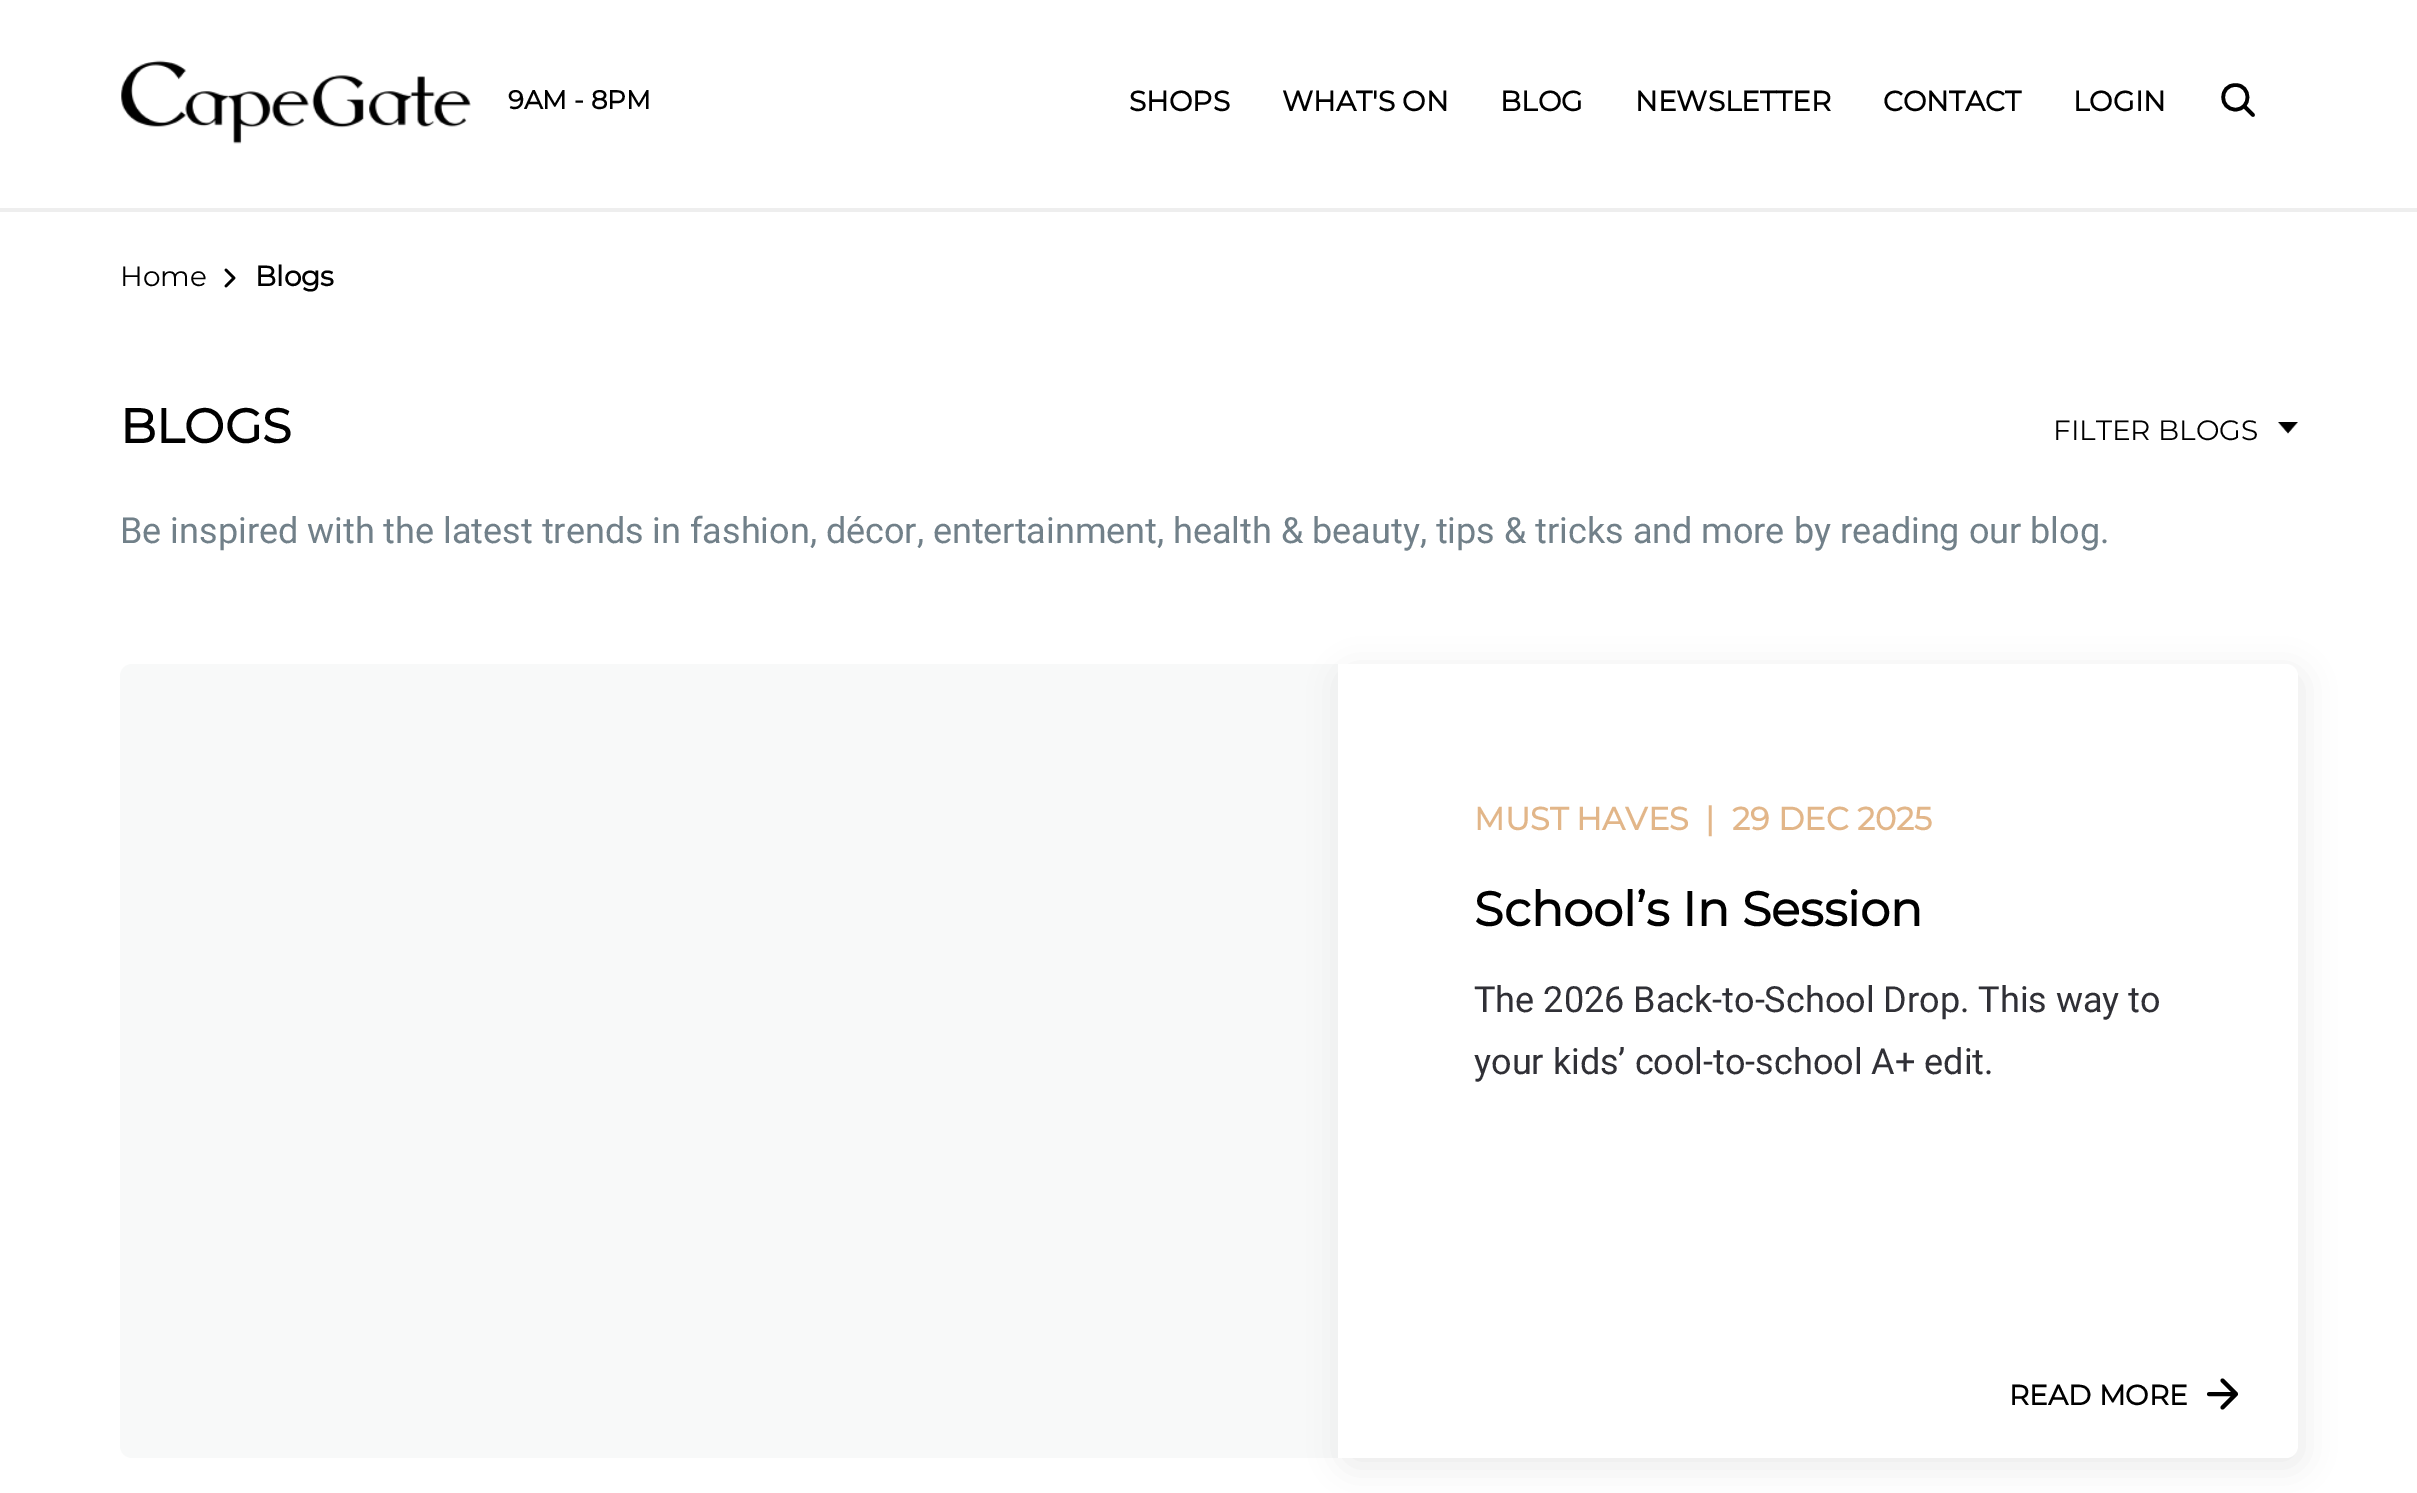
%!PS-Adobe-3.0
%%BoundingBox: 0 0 2417 1493
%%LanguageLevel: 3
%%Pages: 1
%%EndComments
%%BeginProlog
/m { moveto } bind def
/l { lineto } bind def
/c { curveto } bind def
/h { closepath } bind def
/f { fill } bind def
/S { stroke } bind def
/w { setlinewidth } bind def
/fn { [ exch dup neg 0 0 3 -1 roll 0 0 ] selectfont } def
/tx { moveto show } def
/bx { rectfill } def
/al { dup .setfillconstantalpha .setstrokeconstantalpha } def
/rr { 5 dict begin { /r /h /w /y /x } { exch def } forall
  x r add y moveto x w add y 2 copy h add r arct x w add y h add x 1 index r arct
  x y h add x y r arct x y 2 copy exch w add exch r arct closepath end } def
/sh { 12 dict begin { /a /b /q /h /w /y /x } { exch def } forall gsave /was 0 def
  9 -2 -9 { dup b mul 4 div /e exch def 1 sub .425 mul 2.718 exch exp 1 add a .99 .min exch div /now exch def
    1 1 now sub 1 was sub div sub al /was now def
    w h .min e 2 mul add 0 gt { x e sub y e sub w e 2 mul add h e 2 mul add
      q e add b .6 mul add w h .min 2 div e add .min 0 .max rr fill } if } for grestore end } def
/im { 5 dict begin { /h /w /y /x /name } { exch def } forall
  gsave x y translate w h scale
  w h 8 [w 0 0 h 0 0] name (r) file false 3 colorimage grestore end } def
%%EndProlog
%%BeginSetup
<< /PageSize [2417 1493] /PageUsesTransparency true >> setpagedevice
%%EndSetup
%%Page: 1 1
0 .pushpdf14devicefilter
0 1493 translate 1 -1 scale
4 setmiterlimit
1 setgray
0 0 2417 1493 bx
0.933 setgray
0 208 2417 4 bx
(image0.raw) 121 60 350 84 im
/Montserrat-Bold 26 fn
0 setgray
(9AM - 8PM) 508 109 tx
/Montserrat-Bold 28 fn
(SHOPS) 1129 111 tx
(WHAT'S ON) 1282 111 tx
(BLOG) 1500 111 tx
(NEWSLETTER) 1635 111 tx
(CONTACT) 1883 111 tx
(LOGIN) 2073 111 tx
3.6 w
2235.5 85 m 2219 85 2219 109.5 2235.5 109.5 c 2251.5 109.5 2251.5 85 2235.5 85 c h S
1 setlinecap
2244.5 106.5 m 2253 115 l S
/Montserrat-Thin 28 fn
(Home) 120 286 tx
2.6 w
1 setlinejoin
226 270 m 234 278 l 226 286 l S
/Montserrat-Bold 28 fn
(Blogs) 255 286 tx
/Montserrat-Bold 48 fn
(BLOGS) 120 443 tx
(image1.raw) 2278 422 20 12 im
/Montserrat-Thin 28 fn
(FILTER BLOGS) 2053 440 tx
/Roboto-Regular 36 fn
0.443 0.502 0.537 setrgbcolor
(Be inspired with the latest trends in fashion, décor, entertainment, health & beauty, tips & tricks and more by reading our blog.) 120 543 tx
0.973 0.976 0.976 setrgbcolor
132 664 m 1338 664 l 1338 1458 l 132 1458 l 125.5 1458 120 1452.5 120 1446 c 120 676 l 120 669.5 125.5 664 132 664 c h f
0 setgray
1342 672 960 794 12 16 0.08 sh
1 setgray
1338 664 m 2286 664 l 2292.5 664 2298 669.5 2298 676 c 2298 1446 l 2298 1452.5 2292.5 1458 2286 1458 c 1338 1458 l h f
/Montserrat-Bold 32 fn
0.886 0.714 0.537 setrgbcolor
(MUST HAVES  |) 1474 830 tx
(29 DEC 2025) 1732 830 tx
/Montserrat-Bold 48 fn
0 setgray
(School’s In Session) 1474 926 tx
/Roboto-Regular 36 fn
0.188 0.188 0.212 setrgbcolor
(The 2026 Back-to-School Drop. This way to) 1474 1012 tx
(your kids’ cool-to-school A+ edit.) 1474 1074 tx
/Montserrat-Bold 28 fn
0 setgray
(READ MORE) 2009 1405 tx
3.9 w
2209 1394 m 2236 1394 l 2236 1394 m 2222.5 1380.5 l 2236 1394 m 2222.5 1407.5 l S
.poppdf14devicefilter showpage
%%EOF
